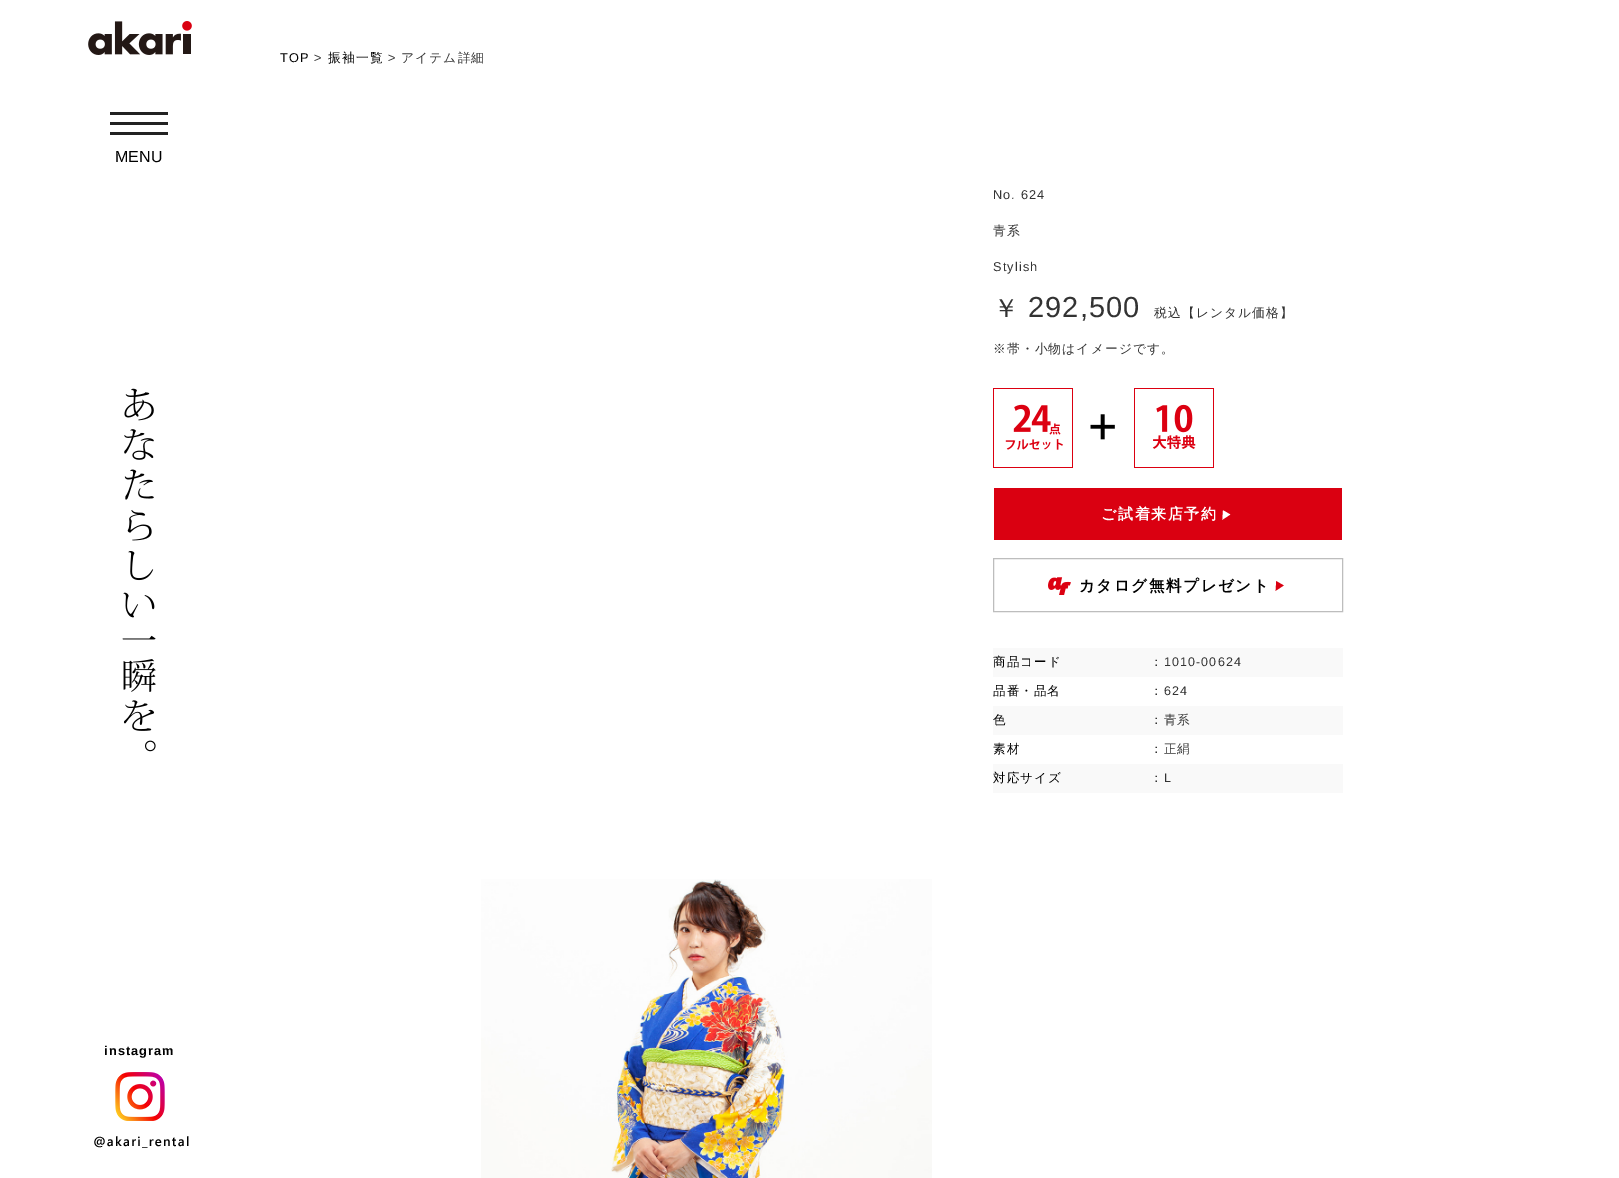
%!PS-Adobe-3.0
%%BoundingBox: 0 0 1619 1178
%%LanguageLevel: 3
%%Pages: 1
%%EndComments
%%BeginProlog
/m { moveto } bind def
/q { gsave } bind def
/Q { grestore } bind def
/fn { [ exch dup neg 0 0 3 -1 roll 0 0 ] selectfont } def
/tx { moveto show } def
/bx { rectfill } def
/im { 5 dict begin { /h /w /y /x /name } { exch def } forall
  gsave x y translate w h scale
  w h 8 [w 0 0 h 0 0] name (r) file false 3 colorimage grestore end } def
%%EndProlog
%%BeginSetup
<< /PageSize [1619 1178] >> setpagedevice
%%EndSetup
%%Page: 1 1
0 1178 translate 1 -1 scale
4 setmiterlimit
1 setgray
0 0 1619 1178 bx
(image0.raw) 88 21 104 34 im
0.133 setgray
110 122 58 3 bx
110 112 58 3 bx
110 132 58 3 bx
/LiberationSans-Regular 16 fn
0 setgray
(MENU) 115 162 tx
(image1.raw) 122 388 34 364 im
/LiberationSans-Bold 12.75 fn
104 1055 m 1.1 0 (instagram) ashow
(image2.raw) 94 1072 95 76 im
/LiberationSans-Regular 12.75 fn
280 62 m 1.1 0 (TOP) ashow
0.2 setgray
314 62 m 1.1 0 (>) ashow
/WenQuanYiZenHei-Medium 12.75 fn
0 setgray
328 62 m 1.1 0 (振袖一覧) ashow
/LiberationSans-Regular 12.75 fn
0.2 setgray
388 62 m 1.1 0 (>) ashow
/WenQuanYiZenHei-Medium 12.75 fn
401 62 m 1.1 0 (アイテム詳細) ashow
/LiberationSans-Regular 12.75 fn
993 199 m 1.1 0 (No. 624) ashow
/WenQuanYiZenHei-Medium 12.75 fn
993 235 m 1.1 0 (青系) ashow
/LiberationSans-Regular 12.75 fn
993 271 m 1.1 0 (Stylish) ashow
/WenQuanYiZenHei-Medium 26 fn
993 317 m 1.1 0 (￥) ashow
/LiberationSans-Regular 29 fn
1028 317 m 1.1 0 (292,500) ashow
/WenQuanYiZenHei-Medium 12.75 fn
1154 317 m 1.1 0 (税込【レンタル価格】) ashow
993 353 m 1.1 0 (※帯・小物はイメージです。) ashow
(image3.raw) 993 388 80 80 im
(image4.raw) 1090 414 25 26 im
(image5.raw) 1134 388 80 80 im
0.855 0 0.067 setrgbcolor
994 488 348 52 bx
/WenQuanYiZenHei-Bold 15 fn
1 setgray
1101 519 m 1.6 0 (ご試着来店予約) ashow
/LiberationSans-Bold 15 fn
q 1216 516 translate 30 rotate 0 0 m 1.6 0 (▼) ashow Q
0.741 setgray
993.5 558.5 349 53 rectstroke
(image6.raw) 1048 577 23 18 im
/WenQuanYiZenHei-Bold 15.5 fn
0 setgray
1079 591 m 1.6 0 (カタログ無料プレゼント) ashow
/LiberationSans-Bold 15.5 fn
0.855 0 0.067 setrgbcolor
q 1269 587 translate 30 rotate 0 0 m 1.6 0 (▼) ashow Q
0.976 setgray
993 648 350 29 bx
/WenQuanYiZenHei-Medium 12.5 fn
0 setgray
993 666 m 1.1 0 (商品コード) ashow
0.2 setgray
1150 666 m 1.1 0 (：) ashow
/LiberationSans-Regular 12.5 fn
1164 666 m 1.1 0 (1010-00624) ashow
/WenQuanYiZenHei-Medium 12.5 fn
0 setgray
993 695 m 1.1 0 (品番・品名) ashow
0.2 setgray
1150 695 m 1.1 0 (：) ashow
/LiberationSans-Regular 12.5 fn
1164 695 m 1.1 0 (624) ashow
0.976 setgray
993 706 350 29 bx
/WenQuanYiZenHei-Medium 12.5 fn
0 setgray
993 724 m 1.1 0 (色) ashow
0.2 setgray
1150 724 m 1.1 0 (：青系) ashow
0 setgray
993 753 m 1.1 0 (素材) ashow
0.2 setgray
1150 753 m 1.1 0 (：正絹) ashow
0.976 setgray
993 764 350 29 bx
0 setgray
993 782 m 1.1 0 (対応サイズ) ashow
0.2 setgray
1150 782 m 1.1 0 (：) ashow
/LiberationSans-Regular 12.5 fn
1164 782 m 1.1 0 (L) ashow
(image7.raw) 481 879 451 299 im
showpage
%%EOF
